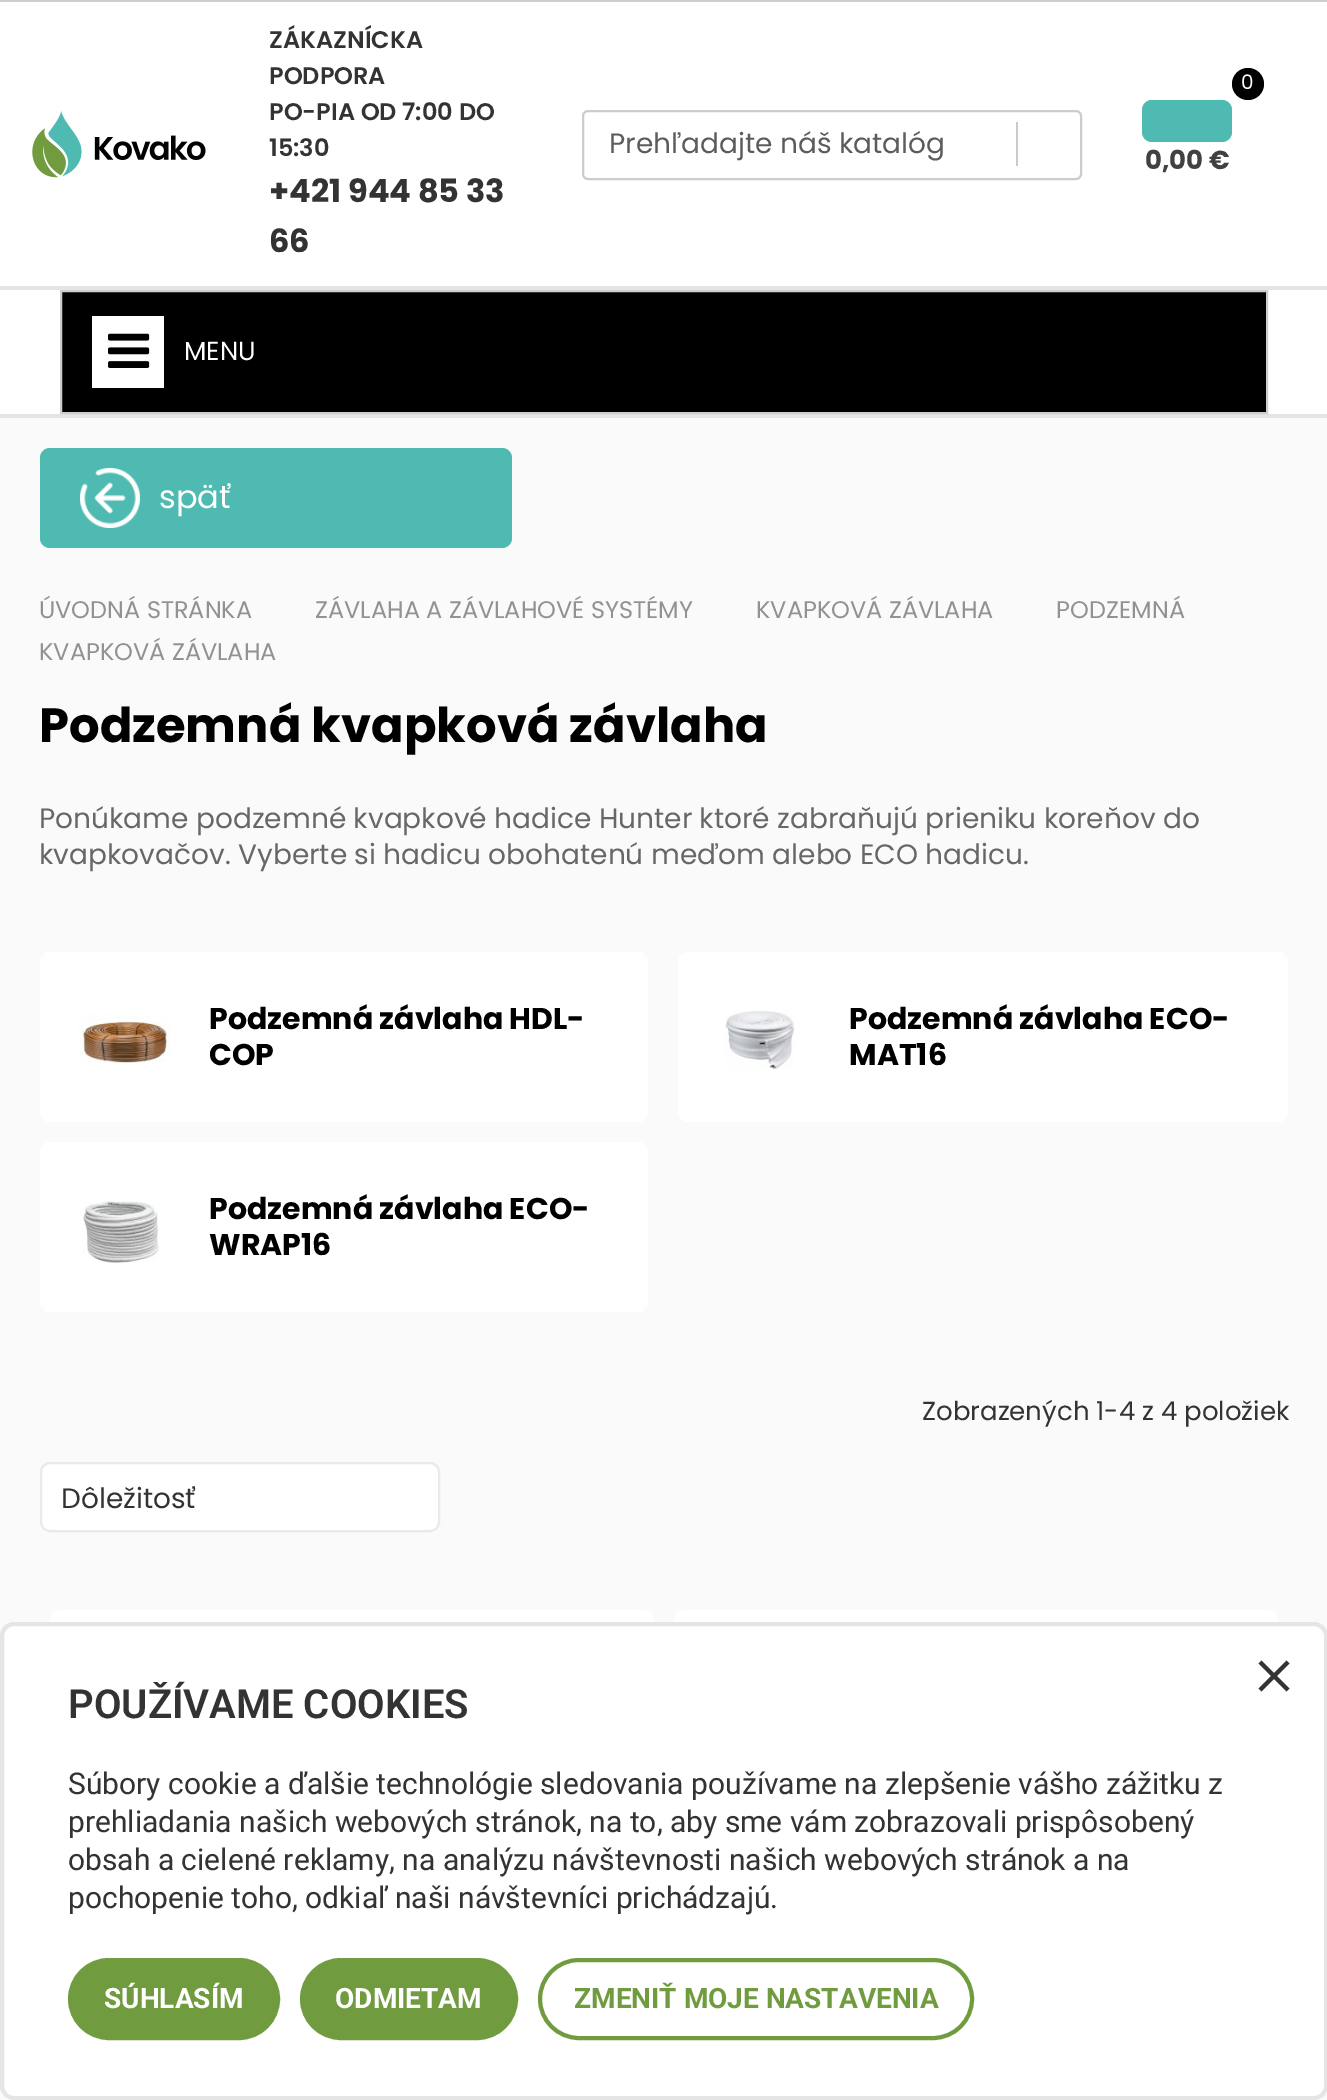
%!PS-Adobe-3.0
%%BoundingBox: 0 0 1327 2100
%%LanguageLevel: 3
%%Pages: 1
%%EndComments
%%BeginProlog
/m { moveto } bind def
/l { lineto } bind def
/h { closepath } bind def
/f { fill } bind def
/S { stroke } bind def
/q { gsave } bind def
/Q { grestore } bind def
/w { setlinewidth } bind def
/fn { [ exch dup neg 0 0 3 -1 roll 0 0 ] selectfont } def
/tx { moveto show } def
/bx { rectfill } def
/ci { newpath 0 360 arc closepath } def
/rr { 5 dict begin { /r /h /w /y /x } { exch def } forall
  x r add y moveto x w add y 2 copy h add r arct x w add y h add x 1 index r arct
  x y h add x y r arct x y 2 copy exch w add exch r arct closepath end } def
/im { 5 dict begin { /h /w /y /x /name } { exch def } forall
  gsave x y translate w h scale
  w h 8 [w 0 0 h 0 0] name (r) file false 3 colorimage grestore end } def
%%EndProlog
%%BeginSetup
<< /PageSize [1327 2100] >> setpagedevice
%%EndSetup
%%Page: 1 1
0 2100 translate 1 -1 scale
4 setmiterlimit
0.808 setgray
0 0 1327 2100 bx
1 setgray
0 2 1327 412 bx
(image0.raw) 32 111 174 67 im
/Poppins-SemiBold 24 fn
0.2 setgray
(ZÁKAZNÍCKA) 269 48 tx
(PODPORA) 269 84 tx
(PO-PIA OD 7:00 DO) 269 120 tx
(15:30) 269 156 tx
/Poppins-Bold 32 fn
(+421 944 85 33) 269 202 tx
(66) 269 252 tx
0.8 setgray
2 w
583 111 498 68 5 rr S
/Poppins-Regular 28 fn
0.361 setgray
(Prehľadajte náš katalóg) 609 153 tx
0.792 setgray
1016 122 2 44 bx
0.306 0.729 0.694 setrgbcolor
1142 100 90 42 10 rr f
0 setgray
1248 84 16 ci f
/Poppins-Regular 20 fn
1 setgray
(0) 1241 89 tx
/Poppins-Bold 26 fn
0.255 setgray
(0,00 €) 1145 169 tx
0.898 setgray
0 286 1327 4 bx
0 414 1327 4 bx
0 setgray
61 291 m 1267 291 l 1267 413 l 61 413 l h q f Q
0.808 setgray
S
1 setgray
92 316 72 72 bx
(image1.raw) 108 333 42 35 im
/Poppins-Regular 26 fn
(MENU) 184 360 tx
0.98 setgray
0 418 1327 1682 bx
0.306 0.729 0.694 setrgbcolor
40 448 472 100 10 rr f
(image2.raw) 80 468 60 60 im
/Poppins-Regular 32 fn
1 setgray
(späť) 159 508 tx
/Poppins-Regular 24 fn
0.573 0.573 0.576 setrgbcolor
(ÚVODNÁ STRÁNKA) 39 618 tx
(ZÁVLAHA A ZÁVLAHOVÉ SYSTÉMY) 315 618 tx
(KVAPKOVÁ ZÁVLAHA) 756 618 tx
(PODZEMNÁ) 1056 618 tx
(KVAPKOVÁ ZÁVLAHA) 39 660 tx
/Poppins-Bold 48 fn
0 setgray
(Podzemná kvapková závlaha) 39 742 tx
/Poppins-Regular 28 fn
0.404 setgray
(Ponúkame podzemné kvapkové hadice Hunter ktoré zabraňujú prieniku koreňov do) 39 828 tx
(kvapkovačov. Vyberte si hadicu obohatenú meďom alebo ECO hadicu.) 39 864 tx
1 setgray
40 952 608 170 10 rr f
(image3.raw) 77 1014 94 52 im
/Poppins-Bold 30 fn
0 setgray
(Podzemná závlaha HDL-) 209 1029 tx
(COP) 209 1065 tx
1 setgray
678 952 610 170 10 rr f
(image4.raw) 725 1011 70 58 im
0 setgray
(Podzemná závlaha ECO-) 849 1029 tx
(MAT16) 849 1065 tx
1 setgray
40 1142 608 170 10 rr f
(image5.raw) 83 1201 76 62 im
0 setgray
(Podzemná závlaha ECO-) 209 1219 tx
(WRAP16) 209 1255 tx
/Poppins-Regular 26 fn
0.2 setgray
(Zobrazených 1-4 z 4 položiek) 922 1420 tx
1 setgray
41 1463 398 68 9 rr q f Q
0.918 setgray
S
/Poppins-Regular 28 fn
0.2 setgray
(Dôležitosť) 61 1508 tx
1 setgray
50 1610 604 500 10 rr f
674 1610 604 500 10 rr f
2 1624 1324 474 12 rr q f Q
0.898 setgray
4 w
S
0.2 setgray
1286.5 1660.5 m 1289.5 1663.5 l 1261.5 1691.5 l 1258.5 1688.5 l h f
1258.5 1663.5 m 1261.5 1660.5 l 1289.5 1688.5 l 1286.5 1691.5 l h f
/Roboto-SemiBold 40 fn
(POUŽÍVAME COOKIES) 68 1718 tx
/Roboto-Regular 30 fn
(Súbory cookie a ďalšie technológie sledovania používame na zlepšenie vášho zážitku z) 68 1794 tx
(prehliadania našich webových stránok, na to, aby sme vám zobrazovali prispôsobený) 68 1832 tx
(obsah a cielené reklamy, na analýzu návštevnosti našich webových stránok a na) 68 1870 tx
(pochopenie toho, odkiaľ naši návštevníci prichádzajú.) 68 1908 tx
0.439 0.612 0.247 setrgbcolor
70 1960 208 78 39 rr q f Q
S
/Roboto-Bold 28 fn
1 setgray
(SÚHLASÍM) 104 2008 tx
0.439 0.612 0.247 setrgbcolor
302 1960 214 78 39 rr q f Q
S
1 setgray
(ODMIETAM) 335 2008 tx
0.439 0.612 0.247 setrgbcolor
540 1960 432 78 39 rr S
(ZMENIŤ MOJE NASTAVENIA) 574 2008 tx
showpage
%%EOF
